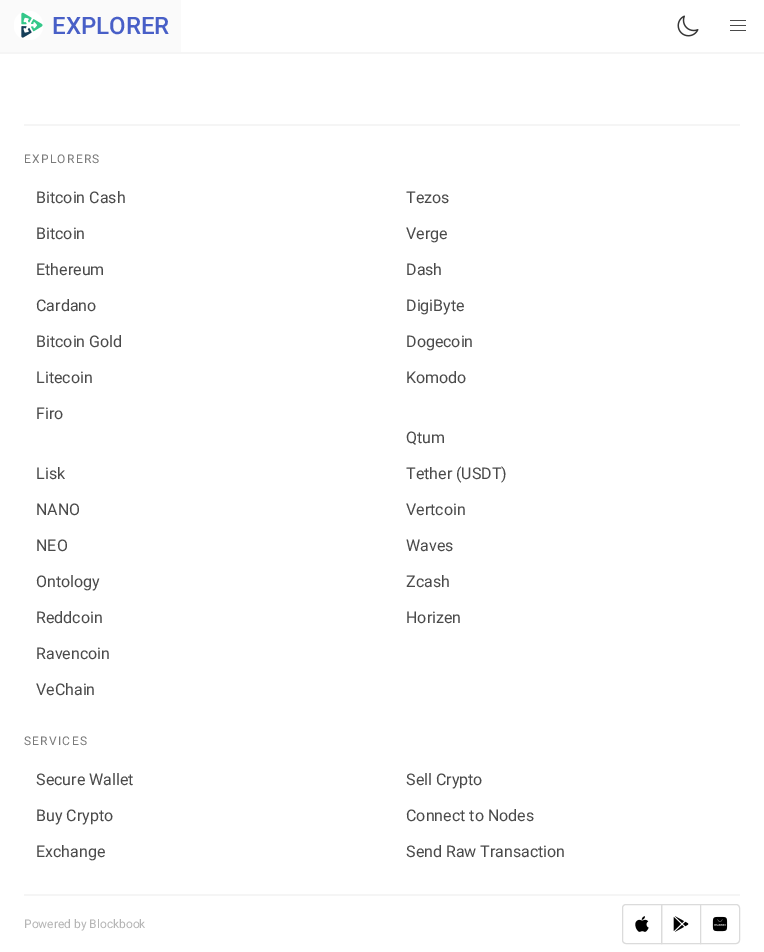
%!PS-Adobe-3.0
%%BoundingBox: 0 0 764 952
%%LanguageLevel: 3
%%Pages: 1
%%EndComments
%%BeginProlog
/m { moveto } bind def
/l { lineto } bind def
/c { curveto } bind def
/h { closepath } bind def
/f { fill } bind def
/S { stroke } bind def
/q { gsave } bind def
/Q { grestore } bind def
/fn { [ exch dup neg 0 0 3 -1 roll 0 0 ] selectfont } def
/tx { moveto show } def
/bx { rectfill } def
/im { 5 dict begin { /h /w /y /x /name } { exch def } forall
  gsave x y translate w h scale
  w h 8 [w 0 0 h 0 0] name (r) file false 3 colorimage grestore end } def
%%EndProlog
%%BeginSetup
<< /PageSize [764 952] >> setpagedevice
%%EndSetup
%%Page: 1 1
0 952 translate 1 -1 scale
4 setmiterlimit
1 setgray
0 0 764 952 bx
0.961 setgray
0 52 764 2 bx
0.98 setgray
0 0 181 52 bx
(image0.raw) 14 11 29 29 im
/Roboto-Medium 24 fn
0.282 0.373 0.78 setrgbcolor
(EXPLORER) 52 34 tx
(image1.raw) 677 15 22 22 im
0.29 setgray
730 20 16 1 bx
730 25 16 1 bx
730 30 16 1 bx
0.961 setgray
24 124 716 2 bx
/Roboto-Regular 12 fn
0.478 setgray
24 163 m 1.25 0 (EXPLORERS) ashow
/Roboto-Regular 16 fn
0.29 setgray
(Bitcoin Cash) 36 203 tx
(Bitcoin) 36 239 tx
(Ethereum) 36 275 tx
(Cardano) 36 311 tx
(Bitcoin Gold) 36 347 tx
(Litecoin) 36 383 tx
(Firo) 36 419 tx
(Lisk) 36 479 tx
(NANO) 36 515 tx
(NEO) 36 551 tx
(Ontology) 36 587 tx
(Reddcoin) 36 623 tx
(Ravencoin) 36 659 tx
(VeChain) 36 695 tx
(Tezos) 406 203 tx
(Verge) 406 239 tx
(Dash) 406 275 tx
(DigiByte) 406 311 tx
(Dogecoin) 406 347 tx
(Komodo) 406 383 tx
(Qtum) 406 443 tx
(Tether \(USDT\)) 406 479 tx
(Vertcoin) 406 515 tx
(Waves) 406 551 tx
(Zcash) 406 587 tx
(Horizen) 406 623 tx
/Roboto-Regular 12 fn
0.478 setgray
24 745 m 1.25 0 (SERVICES) ashow
/Roboto-Regular 16 fn
0.29 setgray
(Secure Wallet) 36 785 tx
(Buy Crypto) 36 821 tx
(Exchange) 36 857 tx
(Sell Crypto) 406 785 tx
(Connect to Nodes) 406 821 tx
(Send Raw Transaction) 406 857 tx
0.961 setgray
24 894 716 2 bx
/Roboto-Regular 12 fn
0.71 setgray
(Powered by Blockbook) 24 928 tx
0.859 setgray
626 904.5 m 661.5 904.5 l 661.5 943.5 l 626 943.5 l 624 943.5 622.5 942 622.5 940 c 622.5 908 l 622.5 906 624 904.5 626 904.5 c h S
(image2.raw) 635 916 14 16 im
661.5 904.5 39 39 rectstroke
(image3.raw) 673 916 16 16 im
1 setgray
700.5 904.5 m 736 904.5 l 738 904.5 739.5 906 739.5 908 c 739.5 940 l 739.5 942 738 943.5 736 943.5 c 700.5 943.5 l h q f Q
0.859 setgray
S
(image4.raw) 712 916 16 16 im
showpage
%%EOF
